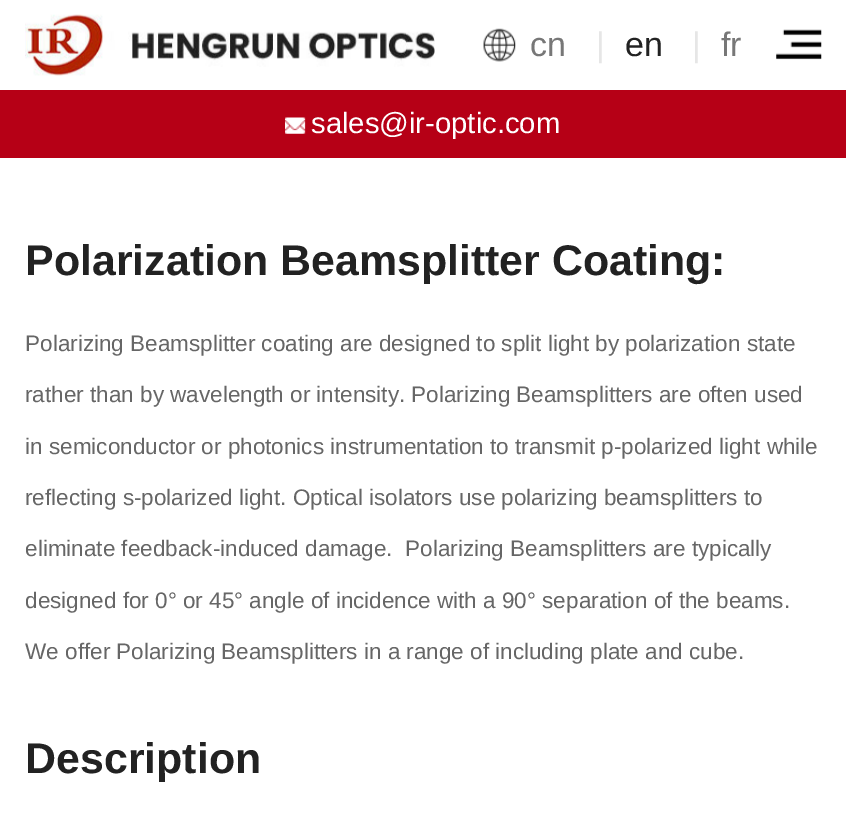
%!PS-Adobe-3.0
%%BoundingBox: 0 0 846 833
%%LanguageLevel: 3
%%Pages: 1
%%EndComments
%%BeginProlog
/fn { [ exch dup neg 0 0 3 -1 roll 0 0 ] selectfont } def
/tx { moveto show } def
/bx { rectfill } def
/im { 5 dict begin { /h /w /y /x /name } { exch def } forall
  gsave x y translate w h scale
  w h 8 [w 0 0 h 0 0] name (r) file false 3 colorimage grestore end } def
%%EndProlog
%%BeginSetup
<< /PageSize [846 833] >> setpagedevice
%%EndSetup
%%Page: 1 1
0 833 translate 1 -1 scale
4 setmiterlimit
1 setgray
0 0 846 833 bx
(image0.raw) 25 14 410 62 im
(image1.raw) 483 28 33 34 im
/LiberationSans-Regular 34 fn
0.467 setgray
(cn) 530 56 tx
0.902 setgray
(|) 596 56 tx
0.133 setgray
(en) 625 56 tx
0.902 setgray
(|) 692 56 tx
0.467 setgray
(fr) 721 56 tx
(image2.raw) 776 29 46 31 im
0.714 0 0.086 setrgbcolor
0 90 846 68 bx
(image3.raw) 285 117 21 17 im
/LiberationSans-Regular 29.25 fn
1 setgray
(sales@ir-optic.com) 311 133 tx
/LiberationSans-Bold 42.9 fn
0.133 setgray
(Polarization Beamsplitter Coating:) 25 275 tx
/LiberationSans-Regular 22.5 fn
0.4 setgray
(Polarizing Beamsplitter coating are designed to split light by polarization state) 25 351 tx
(rather than by wavelength or intensity. Polarizing Beamsplitters are often used) 25 402 tx
(in semiconductor or photonics instrumentation to transmit p-polarized light while) 25 454 tx
(reflecting s-polarized light. Optical isolators use polarizing beamsplitters to) 25 505 tx
(eliminate feedback-induced damage.  Polarizing Beamsplitters are typically) 25 556 tx
(designed for 0° or 45° angle of incidence with a 90° separation of the beams.) 25 608 tx
(We offer Polarizing Beamsplitters in a range of including plate and cube.) 25 659 tx
/LiberationSans-Bold 42.9 fn
0.133 setgray
(Description) 25 773 tx
showpage
%%EOF
